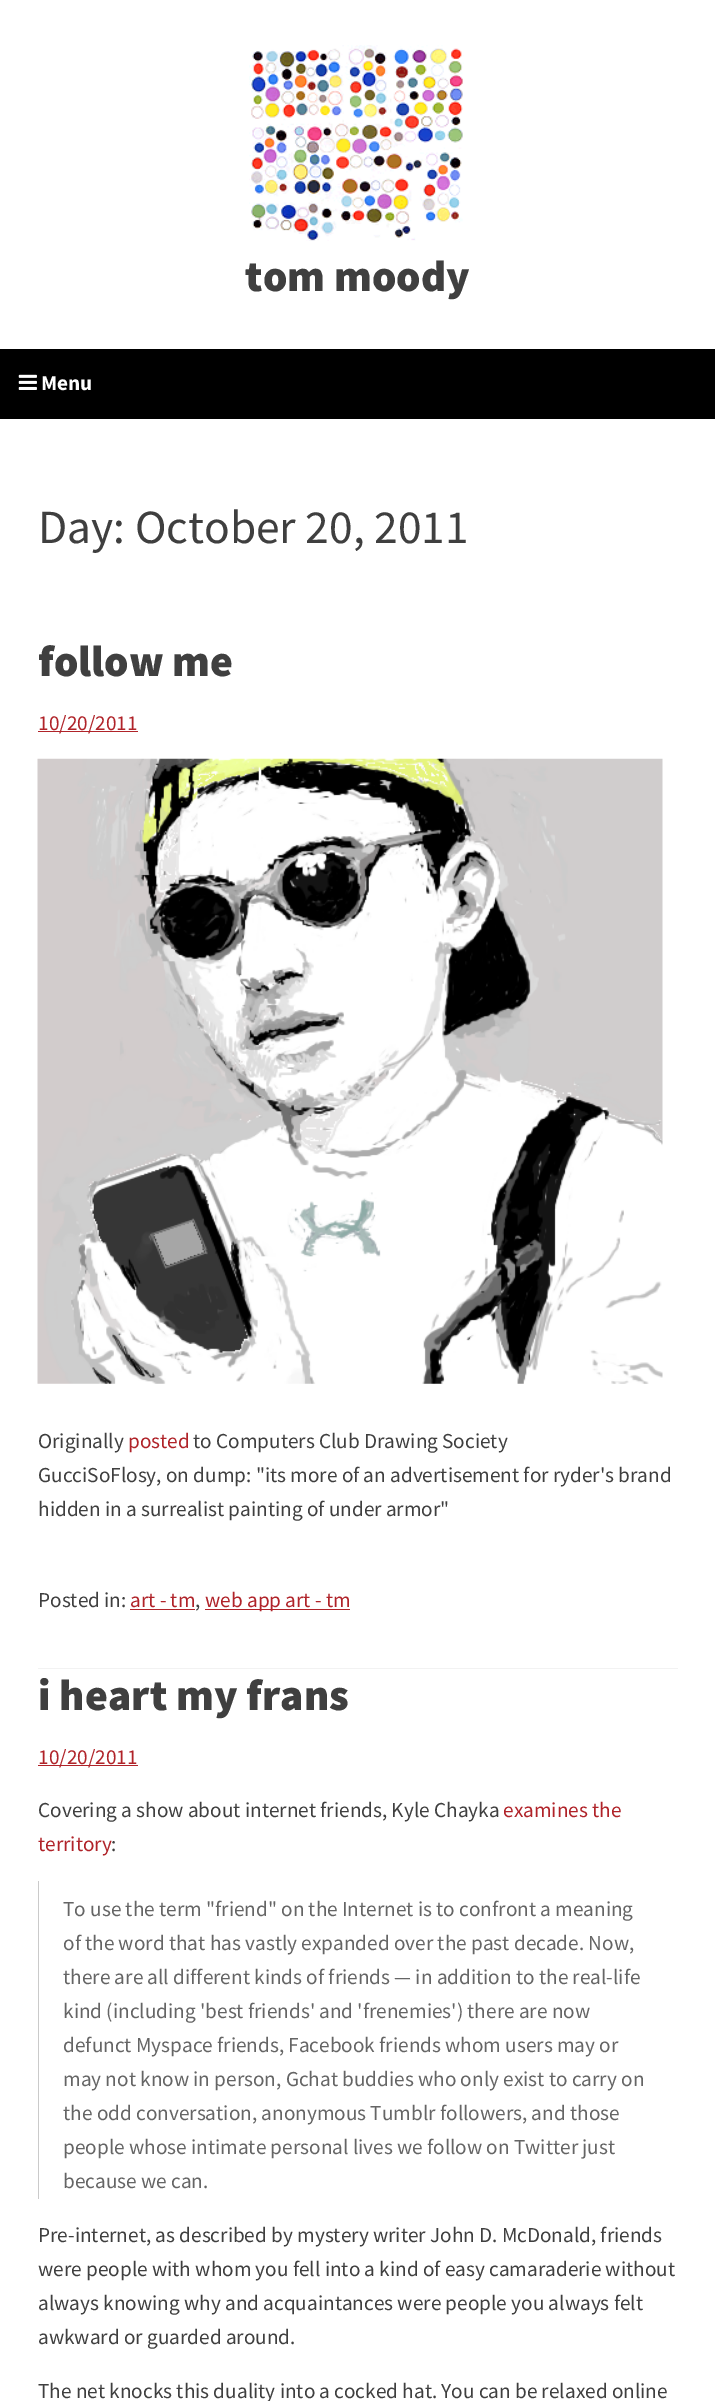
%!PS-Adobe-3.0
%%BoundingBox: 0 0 715 2401
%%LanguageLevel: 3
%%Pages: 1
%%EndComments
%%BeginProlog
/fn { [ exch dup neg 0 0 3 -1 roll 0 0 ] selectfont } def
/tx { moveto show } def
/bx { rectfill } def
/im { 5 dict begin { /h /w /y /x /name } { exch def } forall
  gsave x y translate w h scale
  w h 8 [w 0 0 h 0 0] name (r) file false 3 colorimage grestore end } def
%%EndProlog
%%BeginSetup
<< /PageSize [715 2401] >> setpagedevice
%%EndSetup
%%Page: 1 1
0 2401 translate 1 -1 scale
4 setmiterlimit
1 setgray
0 0 715 2401 bx
(image0.raw) 249 45 215 196 im
/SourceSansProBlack-Black 43.75 fn
0.247 setgray
(tom moody) 245 291 tx
0 setgray
0 349 715 70 bx
(image1.raw) 18 374 19 16 im
/SourceSansPro-Bold 21.25 fn
1 setgray
(Menu) 41 390 tx
/SourceSansPro-Regular 47.5 fn
0.247 setgray
(Day: October 20, 2011) 38 543 tx
/SourceSansProBlack-Black 43.75 fn
(follow me) 38 676 tx
0.69 0.137 0.161 setrgbcolor
38 731 100 1 bx
/SourceSansPro-Regular 21.25 fn
(10/20/2011) 38 730 tx
(image2.raw) 37 758 626 626 im
0.247 setgray
(Originally) 38 1448 tx
0.69 0.137 0.161 setrgbcolor
(posted) 128 1448 tx
0.247 setgray
(to Computers Club Drawing Society) 193 1448 tx
(GucciSoFlosy, on dump: "its more of an advertisement for ryder's brand) 38 1482 tx
(hidden in a surrealist painting of under armor") 38 1516 tx
0.949 setgray
38 1668 640 1 bx
0.247 setgray
(Posted in:) 38 1607 tx
0.69 0.137 0.161 setrgbcolor
(art - tm) 130 1607 tx
130 1609 65 1 bx
0.247 setgray
(,) 195 1607 tx
0.69 0.137 0.161 setrgbcolor
205 1609 145 1 bx
(web app art - tm) 205 1607 tx
/SourceSansProBlack-Black 43.75 fn
0.247 setgray
(i heart my frans) 38 1710 tx
0.69 0.137 0.161 setrgbcolor
38 1765 100 1 bx
/SourceSansPro-Regular 21.25 fn
(10/20/2011) 38 1764 tx
0.247 setgray
(Covering a show about internet friends, Kyle Chayka) 38 1817 tx
0.69 0.137 0.161 setrgbcolor
(examines the) 503 1817 tx
(territory) 38 1851 tx
0.247 setgray
(:) 111 1851 tx
0.792 setgray
38 1881 1 318 bx
0.396 setgray
(To use the term "friend" on the Internet is to confront a meaning) 63 1916 tx
(of the word that has vastly expanded over the past decade. Now,) 63 1950 tx
(there are all different kinds of friends — in addition to the real-life) 63 1984 tx
(kind \(including 'best friends' and 'frenemies'\) there are now) 63 2018 tx
(defunct Myspace friends, Facebook friends whom users may or) 63 2052 tx
(may not know in person, Gchat buddies who only exist to carry on) 63 2086 tx
(the odd conversation, anonymous Tumblr followers, and those) 63 2120 tx
(people whose intimate personal lives we follow on Twitter just) 63 2154 tx
(because we can.) 63 2188 tx
0.247 setgray
(Pre-internet, as described by mystery writer John D. McDonald, friends) 38 2242 tx
(were people with whom you fell into a kind of easy camaraderie without) 38 2276 tx
(always knowing why and acquaintances were people you always felt) 38 2310 tx
(awkward or guarded around.) 38 2344 tx
(The net knocks this duality into a cocked hat. You can be relaxed online) 38 2398 tx
showpage
%%EOF
